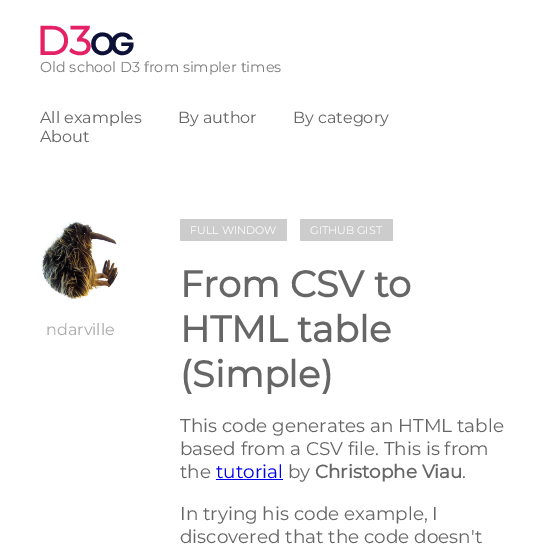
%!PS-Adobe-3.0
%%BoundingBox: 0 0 544 560
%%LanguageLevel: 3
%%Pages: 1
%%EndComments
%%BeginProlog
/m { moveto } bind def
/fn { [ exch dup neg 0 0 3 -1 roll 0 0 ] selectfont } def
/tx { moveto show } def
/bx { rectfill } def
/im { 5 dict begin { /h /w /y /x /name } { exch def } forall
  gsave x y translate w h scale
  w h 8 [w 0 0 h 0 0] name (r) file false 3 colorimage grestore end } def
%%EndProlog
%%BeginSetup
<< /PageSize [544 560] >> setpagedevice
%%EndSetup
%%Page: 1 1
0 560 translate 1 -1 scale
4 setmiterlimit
1 setgray
0 0 544 560 bx
/Montserrat-Bold 40 fn
0.898 0.129 0.396 setrgbcolor
(D3) 36 55 tx
/Poppins-SemiBold 32 fn
0.051 0.067 0.216 setrgbcolor
90 55 m -5 0 (OG) ashow
/Montserrat-Thin 14.4 fn
0.482 setgray
(Old school D3 from simpler times) 40 72 tx
/Montserrat-Thin 16 fn
0.4 setgray
(All examples) 40 123 tx
(By author) 178 123 tx
(By category) 293 123 tx
(About) 40 142 tx
(image0.raw) 40 220 79 80 im
0.667 setgray
(ndarville) 46 335 tx
0.8 setgray
180 219 107 22 bx
/Montserrat-Thin 11 fn
1 setgray
(FULL WINDOW) 190 234 tx
0.8 setgray
300 219 93 22 bx
1 setgray
(GITHUB GIST) 310 234 tx
/Montserrat-Bold 36.75 fn
0.4 setgray
(From CSV to) 180 297 tx
(HTML table) 180 342 tx
(\(Simple\)) 180 387 tx
/Montserrat-Thin 18.4 fn
(This code generates an HTML table) 180 432 tx
(based from a CSV file. This is from) 180 455 tx
(the) 180 478 tx
0 0 0.933 setrgbcolor
(tutorial) 216 478 tx
216 479 67 1 bx
0.4 setgray
(by) 288 478 tx
/Montserrat-Bold 18.4 fn
(Christophe Viau) 315 478 tx
/Montserrat-Thin 18.4 fn
(.) 462 478 tx
(In trying his code example, I) 180 520 tx
(discovered that the code doesn't) 180 543 tx
showpage
%%EOF
